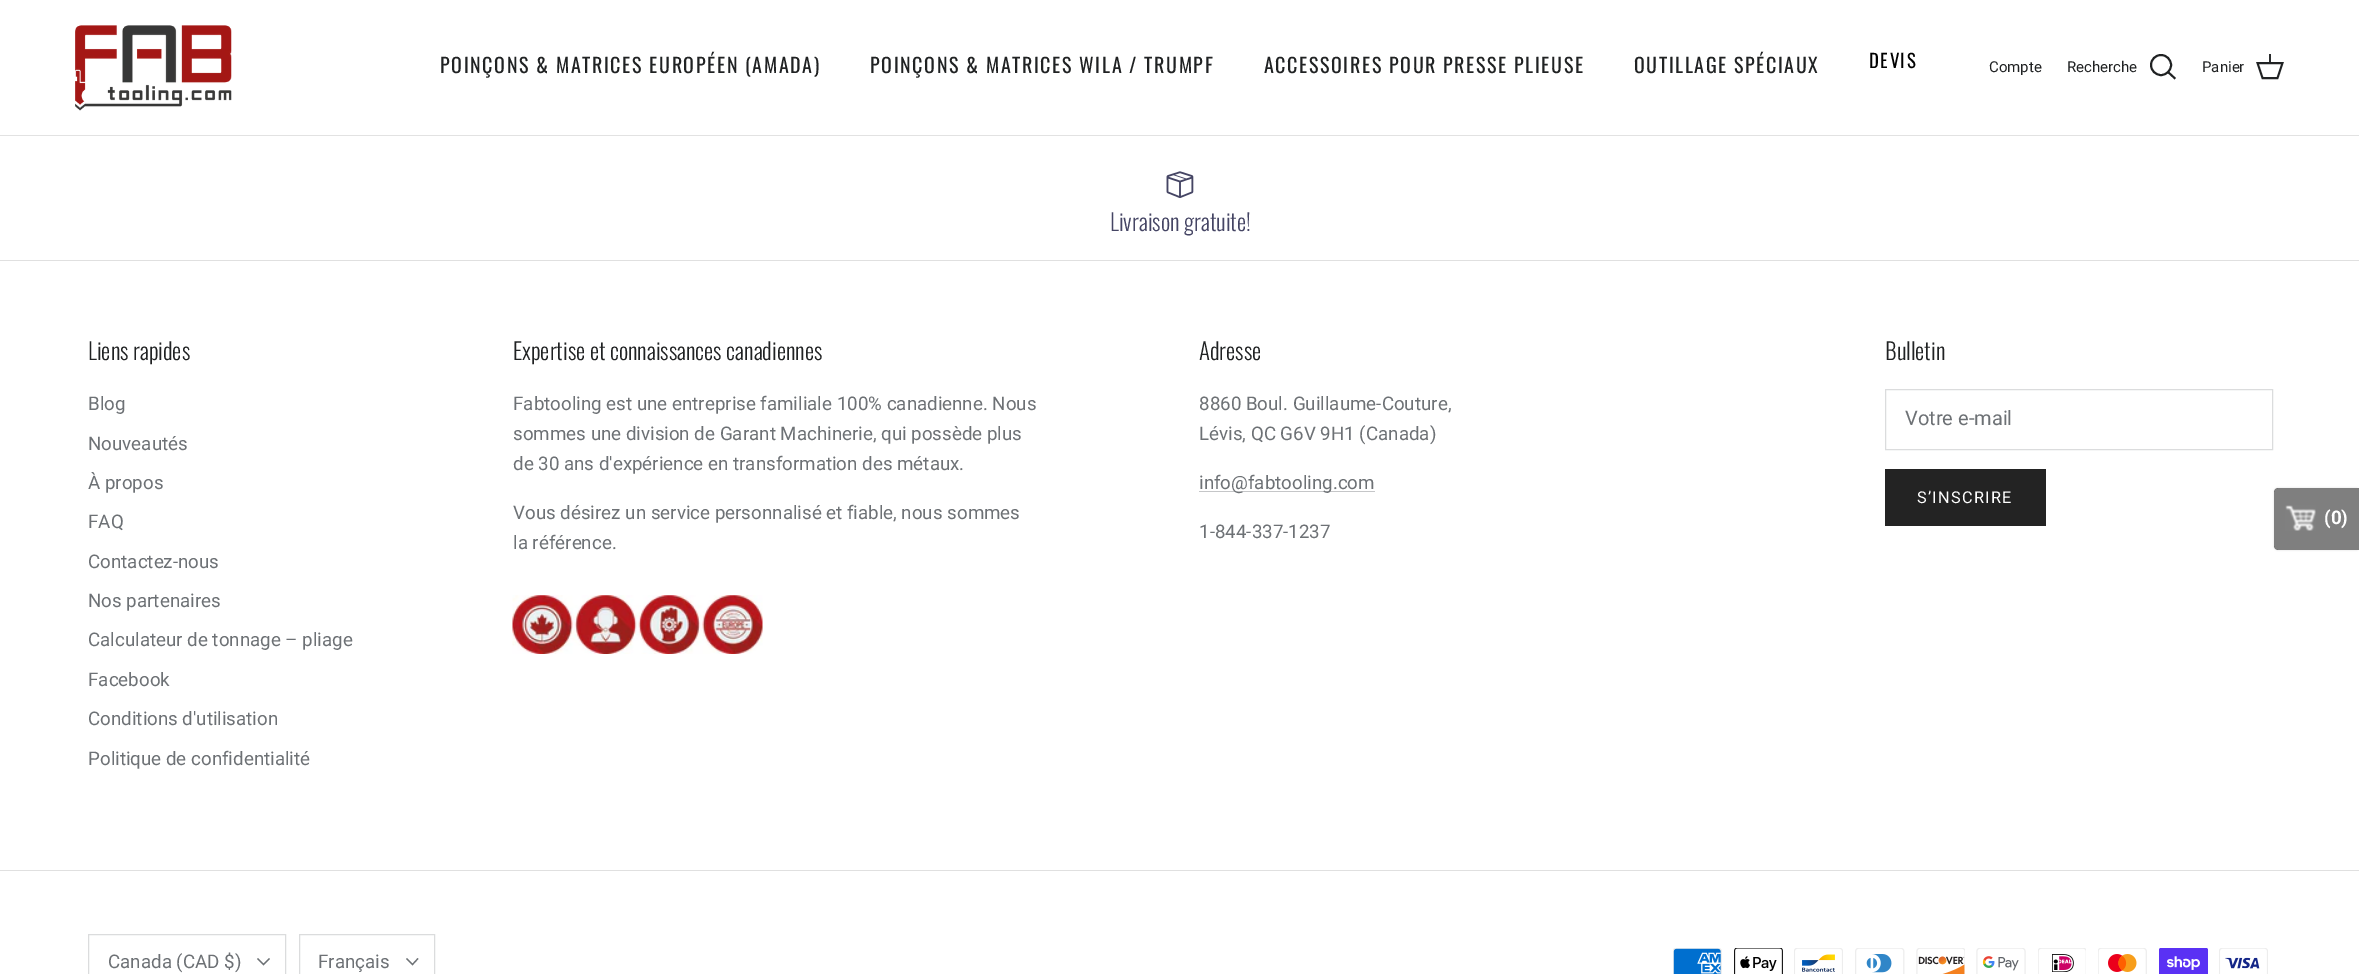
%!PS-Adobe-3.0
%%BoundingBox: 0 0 2359 974
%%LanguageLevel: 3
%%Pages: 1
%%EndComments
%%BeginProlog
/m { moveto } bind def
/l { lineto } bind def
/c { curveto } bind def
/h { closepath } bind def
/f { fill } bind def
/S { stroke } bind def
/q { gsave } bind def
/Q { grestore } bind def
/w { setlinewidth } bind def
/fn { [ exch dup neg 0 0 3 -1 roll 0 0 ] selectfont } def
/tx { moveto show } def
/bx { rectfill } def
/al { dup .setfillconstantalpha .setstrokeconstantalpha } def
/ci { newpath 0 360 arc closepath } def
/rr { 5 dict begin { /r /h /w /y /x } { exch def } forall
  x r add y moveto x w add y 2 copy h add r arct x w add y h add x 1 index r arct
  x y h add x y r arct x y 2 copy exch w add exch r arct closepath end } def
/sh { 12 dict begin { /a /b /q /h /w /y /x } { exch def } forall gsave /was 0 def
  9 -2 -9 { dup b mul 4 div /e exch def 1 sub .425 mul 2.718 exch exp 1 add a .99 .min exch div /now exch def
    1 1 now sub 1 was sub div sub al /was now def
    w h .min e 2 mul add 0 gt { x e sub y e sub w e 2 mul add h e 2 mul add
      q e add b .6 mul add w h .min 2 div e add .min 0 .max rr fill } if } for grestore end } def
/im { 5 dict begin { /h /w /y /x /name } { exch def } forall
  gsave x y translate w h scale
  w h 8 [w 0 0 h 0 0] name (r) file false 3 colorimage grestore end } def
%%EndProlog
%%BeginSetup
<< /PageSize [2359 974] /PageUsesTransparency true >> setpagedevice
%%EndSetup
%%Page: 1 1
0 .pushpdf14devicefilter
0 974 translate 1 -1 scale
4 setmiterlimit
1 setgray
0 0 2359 974 bx
0.886 setgray
0 135 2359 1 bx
(image0.raw) 75 25 157 86 im
/Oswald-Regular 20 fn
0.125 0.133 0.137 setrgbcolor
440 73 m 1.6 0 (POINÇONS & MATRICES EUROPÉEN \(AMADA\)) ashow
870 73 m 1.6 0 (POINÇONS & MATRICES WILA / TRUMPF) ashow
1264 73 m 1.6 0 (ACCESSOIRES POUR PRESSE PLIEUSE) ashow
1634 73 m 1.6 0 (OUTILLAGE SPÉCIAUX) ashow
/Oswald-Regular 18.75 fn
0 setgray
1869 68 m 1.5 0 (DEVIS) ashow
/Roboto-Regular 15 fn
0.125 0.133 0.137 setrgbcolor
(Compte) 1989 72 tx
(Recherche) 2067 72 tx
1.9 w
2161 65 10 ci S
2 setlinecap
2168.5 72.5 m 2174.5 78 l S
(Panier) 2202 72 tx
0 setlinecap
2257.5 63 m 2282.5 63 l 2277.5 78 l 2262.5 78 l h S
0.95 al
2269 54 2 9 bx
1 al
(image1.raw) 1166 171 28 28 im
/Oswald-Light 23 fn
0.271 0.271 0.392 setrgbcolor
(Livraison gratuite!) 1110 231 tx
0.878 setgray
0 260 2359 1 bx
0.125 0.133 0.137 setrgbcolor
(Liens rapides) 88 360 tx
/Roboto-Regular 18.75 fn
0.427 0.443 0.459 setrgbcolor
(Blog) 88 410 tx
(Nouveautés) 88 450 tx
(À propos) 88 489 tx
(FAQ) 88 528 tx
(Contactez-nous) 88 568 tx
(Nos partenaires) 88 607 tx
(Calculateur de tonnage – pliage) 88 646 tx
(Facebook) 88 686 tx
(Conditions d'utilisation) 88 725 tx
(Politique de confidentialité) 88 765 tx
/Oswald-Light 23 fn
0.125 0.133 0.137 setrgbcolor
(Expertise et connaissances canadiennes) 513 360 tx
/Roboto-Regular 18.75 fn
0.427 0.443 0.459 setrgbcolor
(Fabtooling est une entreprise familiale 100% canadienne. Nous) 513 410 tx
(sommes une division de Garant Machinerie, qui possède plus) 513 440 tx
(de 30 ans d'expérience en transformation des métaux.) 513 470 tx
(Vous désirez un service personnalisé et fiable, nous sommes) 513 519 tx
(la référence.) 513 549 tx
(image2.raw) 512 595 251 59 im
/Oswald-Light 23 fn
0.125 0.133 0.137 setrgbcolor
(Adresse) 1199 360 tx
/Roboto-Regular 18.75 fn
0.427 0.443 0.459 setrgbcolor
(8860 Boul. Guillaume-Couture,) 1199 410 tx
(Lévis, QC G6V 9H1 \(Canada\)) 1199 440 tx
0.773 0.776 0.784 setrgbcolor
1199 491 176 1 bx
0.427 0.443 0.459 setrgbcolor
(info@fabtooling.com) 1199 489 tx
(1-844-337-1237) 1199 538 tx
/Oswald-Light 23 fn
0.125 0.133 0.137 setrgbcolor
(Bulletin) 1885 360 tx
0.859 0.863 0.867 setrgbcolor
1 w
1885.5 389.5 387 60 rectstroke
/Roboto-Regular 20 fn
0.427 0.443 0.459 setrgbcolor
(Votre e-mail) 1905 425 tx
0.137 setgray
1885 469 161 57 bx
/Roboto-Regular 16.25 fn
1 setgray
1917 503 m 1.25 0 (S’INSCRIRE) ashow
0.878 setgray
0 870 2359 1 bx
0.859 0.863 0.867 setrgbcolor
88.5 934.5 197 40 rectstroke
/Roboto-Regular 18.75 fn
0.427 0.443 0.459 setrgbcolor
(Canada \(CAD $\)) 108 968 tx
1.2 w
269.5 958.5 m 263.5 964.5 l 257.5 958.5 l S
0.859 0.863 0.867 setrgbcolor
1 w
299.5 934.5 135 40 rectstroke
0.427 0.443 0.459 setrgbcolor
(Français) 318 968 tx
1.2 w
418 958.5 m 412.5 964.5 l 406.5 958.5 l S
(image3.raw) 1673 948 49 26 im
(image4.raw) 1734 948 49 26 im
(image5.raw) 1794 948 49 26 im
(image6.raw) 1855 948 50 26 im
(image7.raw) 1916 948 49 26 im
(image8.raw) 1976 948 50 26 im
(image9.raw) 2038 948 48 26 im
(image10.raw) 2098 948 49 26 im
(image11.raw) 2159 948 49 26 im
(image12.raw) 2219 948 49 26 im
q
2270 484 m 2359 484 l 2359 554 l 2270 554 l h 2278 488 m 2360 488 l 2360 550 l 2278 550 l 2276 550 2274 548 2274 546 c 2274 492 l 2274 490 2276 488 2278 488 c h eoclip newpath
0.867 setgray
2274 488 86 62 4 1 1 sh
Q
0.5 al
0 setgray
2278 488 m 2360 488 l 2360 550 l 2278 550 l 2276 550 2274 548 2274 546 c 2274 492 l 2274 490 2276 488 2278 488 c h f
1 al
(image13.raw) 2285 505 31 26 im
/Roboto-Bold 18.75 fn
1 setgray
(\(0\)) 2324 524 tx
.poppdf14devicefilter showpage
%%EOF
